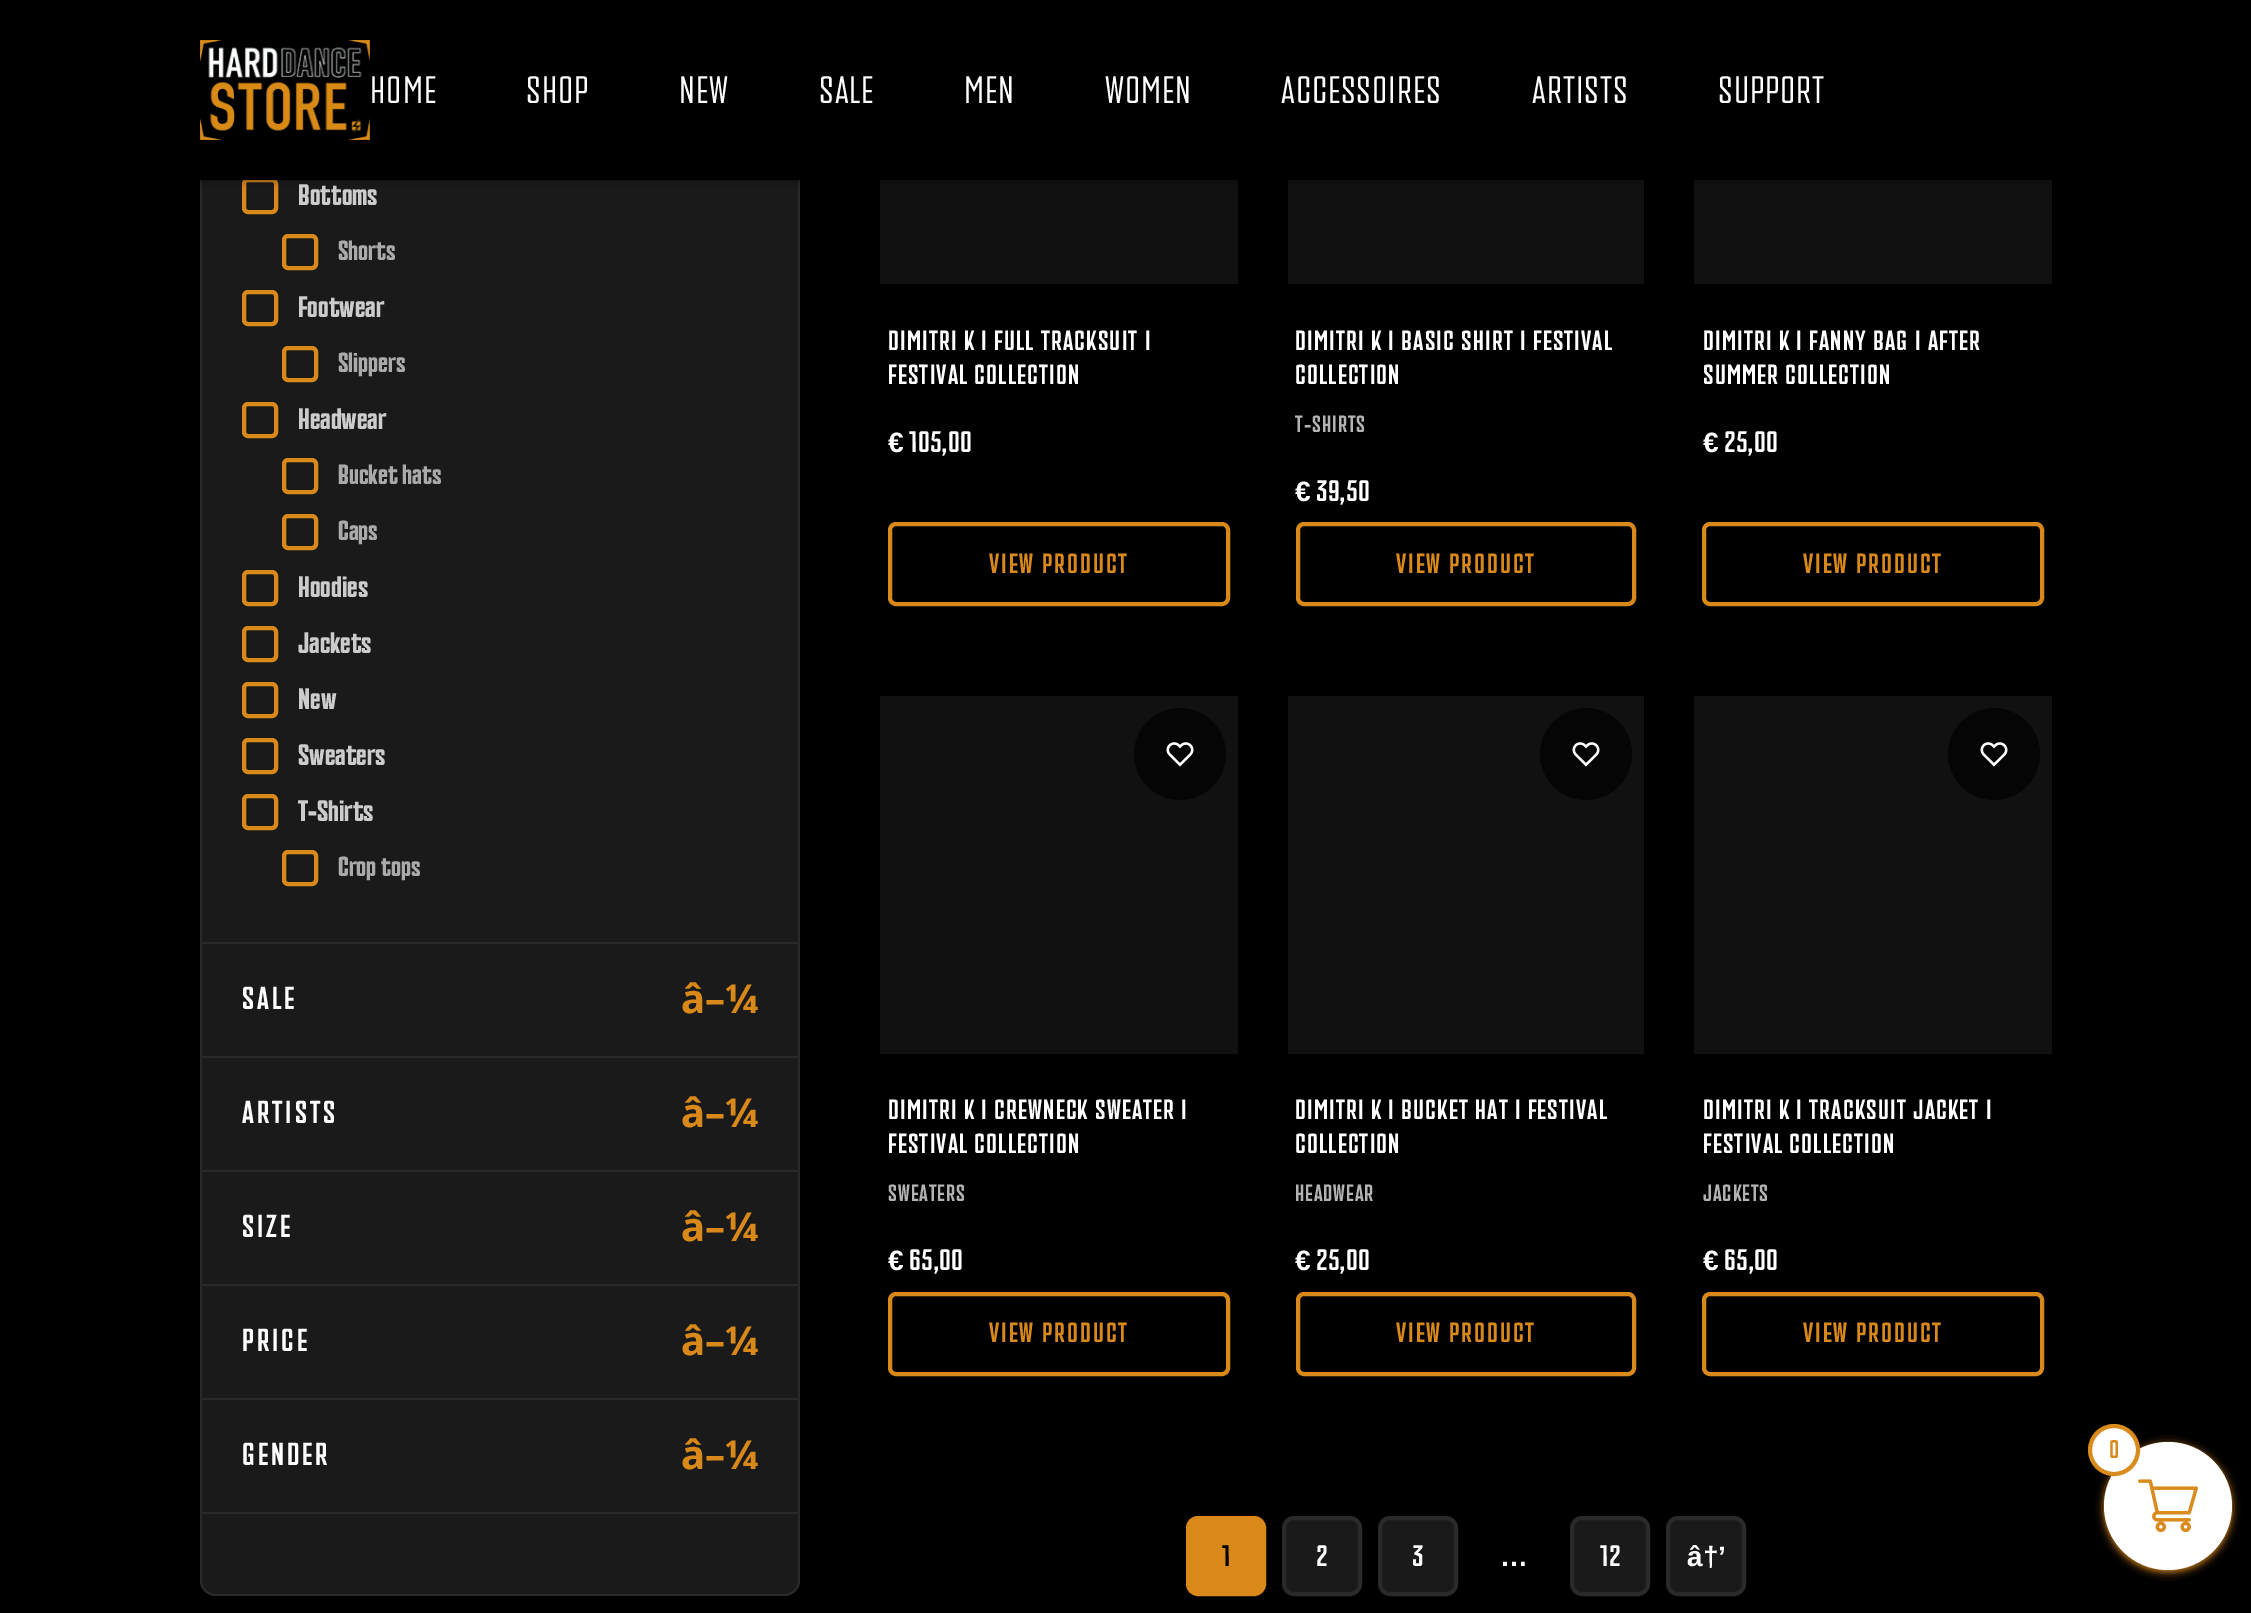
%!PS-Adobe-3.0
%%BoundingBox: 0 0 2251 1613
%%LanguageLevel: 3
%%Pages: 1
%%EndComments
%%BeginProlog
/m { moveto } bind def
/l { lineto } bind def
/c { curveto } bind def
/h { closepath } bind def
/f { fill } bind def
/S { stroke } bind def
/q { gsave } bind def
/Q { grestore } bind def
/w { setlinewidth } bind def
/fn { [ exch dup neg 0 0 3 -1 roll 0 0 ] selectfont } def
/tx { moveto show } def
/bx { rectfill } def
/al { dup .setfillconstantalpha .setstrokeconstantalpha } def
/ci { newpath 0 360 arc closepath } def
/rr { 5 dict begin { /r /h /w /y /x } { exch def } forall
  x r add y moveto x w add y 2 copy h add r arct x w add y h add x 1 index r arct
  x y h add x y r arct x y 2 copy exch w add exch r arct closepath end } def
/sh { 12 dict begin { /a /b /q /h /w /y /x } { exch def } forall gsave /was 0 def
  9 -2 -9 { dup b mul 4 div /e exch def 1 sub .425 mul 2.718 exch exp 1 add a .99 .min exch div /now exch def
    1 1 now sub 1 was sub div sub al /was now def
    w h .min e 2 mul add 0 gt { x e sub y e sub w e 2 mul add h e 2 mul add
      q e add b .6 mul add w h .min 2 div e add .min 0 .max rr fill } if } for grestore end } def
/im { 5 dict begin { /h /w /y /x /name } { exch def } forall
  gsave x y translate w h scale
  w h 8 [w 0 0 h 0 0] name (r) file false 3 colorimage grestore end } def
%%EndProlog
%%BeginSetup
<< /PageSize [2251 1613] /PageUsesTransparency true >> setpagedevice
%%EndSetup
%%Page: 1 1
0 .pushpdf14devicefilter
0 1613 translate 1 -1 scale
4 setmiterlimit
0 setgray
0 0 2251 1613 bx
0.102 setgray
200 66 m 800 66 l 800 1580 l 800 1589 793 1596 784 1596 c 216 1596 l 207 1596 200 1589 200 1580 c h f
0.165 setgray
200 66 m 800 66 l 800 1580 l 800 1589 793 1596 784 1596 c 216 1596 l 207 1596 200 1589 200 1580 c h 202 66 m 798 66 l 798 1580 l 798 1588 792 1594 784 1594 c 216 1594 l 208 1594 202 1588 202 1580 c h eofill
0.851 0.533 0.102 setrgbcolor
4 w
244 180 32 32 4 rr S
0.067 setgray
880 180 358 104 bx
1288 180 356 104 bx
1694 180 358 104 bx
0 setgray
0 0 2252 180 0 5 0.5 sh
200 66 600 114 bx
(image0.raw) 200 40 170 100 im
/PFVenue-Regular 36 fn
1 setgray
370 103 m 1 0 (HOME) ashow
526 103 m 1 0 (SHOP) ashow
679 103 m 1 0 (NEW) ashow
819 103 m 1 0 (SALE) ashow
964 103 m 1 0 (MEN) ashow
1105 103 m 1 0 (WOMEN) ashow
1281 103 m 1 0 (ACCESSOIRES) ashow
1532 103 m 1 0 (ARTISTS) ashow
1718 103 m 1 0 (SUPPORT) ashow
0.165 setgray
202 942 596 2 bx
/PFVenue-Black 28 fn
0.8 setgray
(Bottoms) 298 205 tx
0.851 0.533 0.102 setrgbcolor
284 236 32 32 4 rr S
/PFVenue-Black 26 fn
0.667 setgray
(Shorts) 338 260 tx
0.851 0.533 0.102 setrgbcolor
244 292 32 32 4 rr S
/PFVenue-Black 28 fn
0.8 setgray
(Footwear) 298 317 tx
0.851 0.533 0.102 setrgbcolor
284 348 32 32 4 rr S
/PFVenue-Black 26 fn
0.667 setgray
(Slippers) 338 372 tx
0.851 0.533 0.102 setrgbcolor
244 404 32 32 4 rr S
/PFVenue-Black 28 fn
0.8 setgray
(Headwear) 298 429 tx
0.851 0.533 0.102 setrgbcolor
284 460 32 32 4 rr S
/PFVenue-Black 26 fn
0.667 setgray
(Bucket hats) 338 484 tx
0.851 0.533 0.102 setrgbcolor
284 516 32 32 4 rr S
0.667 setgray
(Caps) 338 540 tx
0.851 0.533 0.102 setrgbcolor
244 572 32 32 4 rr S
/PFVenue-Black 28 fn
0.8 setgray
(Hoodies) 298 597 tx
0.851 0.533 0.102 setrgbcolor
244 628 32 32 4 rr S
0.8 setgray
(Jackets) 298 653 tx
0.851 0.533 0.102 setrgbcolor
244 684 32 32 4 rr S
0.8 setgray
(New) 298 709 tx
0.851 0.533 0.102 setrgbcolor
244 740 32 32 4 rr S
0.8 setgray
(Sweaters) 298 765 tx
0.851 0.533 0.102 setrgbcolor
244 796 32 32 4 rr S
0.8 setgray
(T) 298 821 tx
/NotoSans-Black 28 fn
(-) 308 821 tx
/PFVenue-Black 28 fn
(Shirts) 317 821 tx
0.851 0.533 0.102 setrgbcolor
284 852 32 32 4 rr S
/PFVenue-Black 26 fn
0.667 setgray
(Crop tops) 338 876 tx
0.165 setgray
202 1056 596 2 bx
/PFVenue-Bold 30 fn
1 setgray
242 1009 m 3 0 (SALE) ashow
/NotoSans-Bold 40 fn
0.851 0.533 0.102 setrgbcolor
(â–¼) 681 1013 tx
0.165 setgray
202 1170 596 2 bx
/PFVenue-Bold 30 fn
1 setgray
242 1123 m 3 0 (ARTISTS) ashow
/NotoSans-Bold 40 fn
0.851 0.533 0.102 setrgbcolor
(â–¼) 681 1127 tx
0.165 setgray
202 1284 596 2 bx
/PFVenue-Bold 30 fn
1 setgray
242 1237 m 3 0 (SIZE) ashow
/NotoSans-Bold 40 fn
0.851 0.533 0.102 setrgbcolor
(â–¼) 681 1241 tx
0.165 setgray
202 1398 596 2 bx
/PFVenue-Bold 30 fn
1 setgray
242 1351 m 3 0 (PRICE) ashow
/NotoSans-Bold 40 fn
0.851 0.533 0.102 setrgbcolor
(â–¼) 681 1355 tx
0.165 setgray
202 1512 596 2 bx
/PFVenue-Bold 30 fn
1 setgray
242 1465 m 3 0 (GENDER) ashow
/NotoSans-Bold 40 fn
0.851 0.533 0.102 setrgbcolor
(â–¼) 681 1469 tx
/PFVenue-Bold 26 fn
1 setgray
888 350 m 1.2 0 (DIMITRI K I FULL TRACKSUIT I) ashow
888 384 m 1.2 0 (FESTIVAL COLLECTION) ashow
/LiberationSans-Bold 28 fn
(€) 888 452 tx
/PFVenue-Bold 28 fn
(105,00) 909 452 tx
0.851 0.533 0.102 setrgbcolor
890 524 338 80 6 rr S
/PFVenue-Bold 26 fn
989 573 m 2 0 (VIEW PRODUCT) ashow
1 setgray
1295 350 m 1.2 0 (DIMITRI K I BASIC SHIRT I FESTIVAL) ashow
1295 384 m 1.2 0 (COLLECTION) ashow
/PFVenue-Bold 22 fn
0.702 setgray
1295 432 m 1 0 (T) ashow
/LiberationSans-Bold 22 fn
1304 432 m 1 0 (-) ashow
/PFVenue-Bold 22 fn
1312 432 m 1 0 (SHIRTS) ashow
/LiberationSans-Bold 28 fn
1 setgray
(€) 1295 501 tx
/PFVenue-Bold 28 fn
(39,50) 1316 501 tx
0.851 0.533 0.102 setrgbcolor
1298 524 336 80 6 rr S
/PFVenue-Bold 26 fn
1396 573 m 2 0 (VIEW PRODUCT) ashow
1 setgray
1703 350 m 1.2 0 (DIMITRI K I FANNY BAG I AFTER) ashow
1703 384 m 1.2 0 (SUMMER COLLECTION) ashow
/LiberationSans-Bold 28 fn
(€) 1703 452 tx
/PFVenue-Bold 28 fn
(25,00) 1724 452 tx
0.851 0.533 0.102 setrgbcolor
1704 524 338 80 6 rr S
/PFVenue-Bold 26 fn
1803 573 m 2 0 (VIEW PRODUCT) ashow
0.067 setgray
880 696 358 358 bx
0.02 setgray
1180 754 46 ci f
(image1.raw) 1166 742 28 25 im
1 setgray
888 1119 m 1.2 0 (DIMITRI K I CREWNECK SWEATER I) ashow
888 1153 m 1.2 0 (FESTIVAL COLLECTION) ashow
/PFVenue-Bold 22 fn
0.702 setgray
888 1201 m 1 0 (SWEATERS) ashow
/LiberationSans-Bold 28 fn
1 setgray
(€) 888 1270 tx
/PFVenue-Bold 28 fn
(65,00) 909 1270 tx
0.851 0.533 0.102 setrgbcolor
890 1294 338 80 6 rr S
/PFVenue-Bold 26 fn
989 1342 m 2 0 (VIEW PRODUCT) ashow
0.067 setgray
1288 696 356 358 bx
0.02 setgray
1586 754 46 ci f
(image1.raw) 1572 742 28 25 im
1 setgray
1295 1119 m 1.2 0 (DIMITRI K I BUCKET HAT I FESTIVAL) ashow
1295 1153 m 1.2 0 (COLLECTION) ashow
/PFVenue-Bold 22 fn
0.702 setgray
1295 1201 m 1 0 (HEADWEAR) ashow
/LiberationSans-Bold 28 fn
1 setgray
(€) 1295 1270 tx
/PFVenue-Bold 28 fn
(25,00) 1316 1270 tx
0.851 0.533 0.102 setrgbcolor
1298 1294 336 80 6 rr S
/PFVenue-Bold 26 fn
1396 1342 m 2 0 (VIEW PRODUCT) ashow
0.067 setgray
1694 696 358 358 bx
0.02 setgray
1994 754 46 ci f
(image1.raw) 1980 742 28 25 im
1 setgray
1703 1119 m 1.2 0 (DIMITRI K I TRACKSUIT JACKET I) ashow
1703 1153 m 1.2 0 (FESTIVAL COLLECTION) ashow
/PFVenue-Bold 22 fn
0.702 setgray
1703 1201 m 1 0 (JACKETS) ashow
/LiberationSans-Bold 28 fn
1 setgray
(€) 1703 1270 tx
/PFVenue-Bold 28 fn
(65,00) 1724 1270 tx
0.851 0.533 0.102 setrgbcolor
1704 1294 338 80 6 rr S
/PFVenue-Bold 26 fn
1803 1342 m 2 0 (VIEW PRODUCT) ashow
1188 1518 76 76 10 rr q f Q
S
/PFVenue-Bold 28 fn
0 setgray
(1) 1222 1566 tx
0.102 setgray
1284 1518 76 76 10 rr q f Q
0.165 setgray
S
1 setgray
(2) 1316 1566 tx
0.102 setgray
1380 1518 76 76 10 rr q f Q
0.165 setgray
S
1 setgray
(3) 1412 1566 tx
/LiberationSans-Bold 28 fn
(…) 1500 1566 tx
0.102 setgray
1572 1518 76 76 10 rr q f Q
0.165 setgray
S
/PFVenue-Bold 28 fn
1 setgray
(12) 1600 1566 tx
0.102 setgray
1668 1518 76 76 10 rr q f Q
0.165 setgray
S
/LiberationSans-Bold 28 fn
1 setgray
(â†’) 1687 1566 tx
0.855 0.545 0.118 setrgbcolor
2104 1444 128 128 64 4 1 sh
1 setgray
2168 1506 64 ci f
2114 1450 24 ci q f Q
0.855 0.545 0.118 setrgbcolor
S
/PFVenue-Bold 24 fn
0.851 0.533 0.102 setrgbcolor
(0) 2109 1458 tx
(image2.raw) 2138 1479 60 54 im
.poppdf14devicefilter showpage
%%EOF
